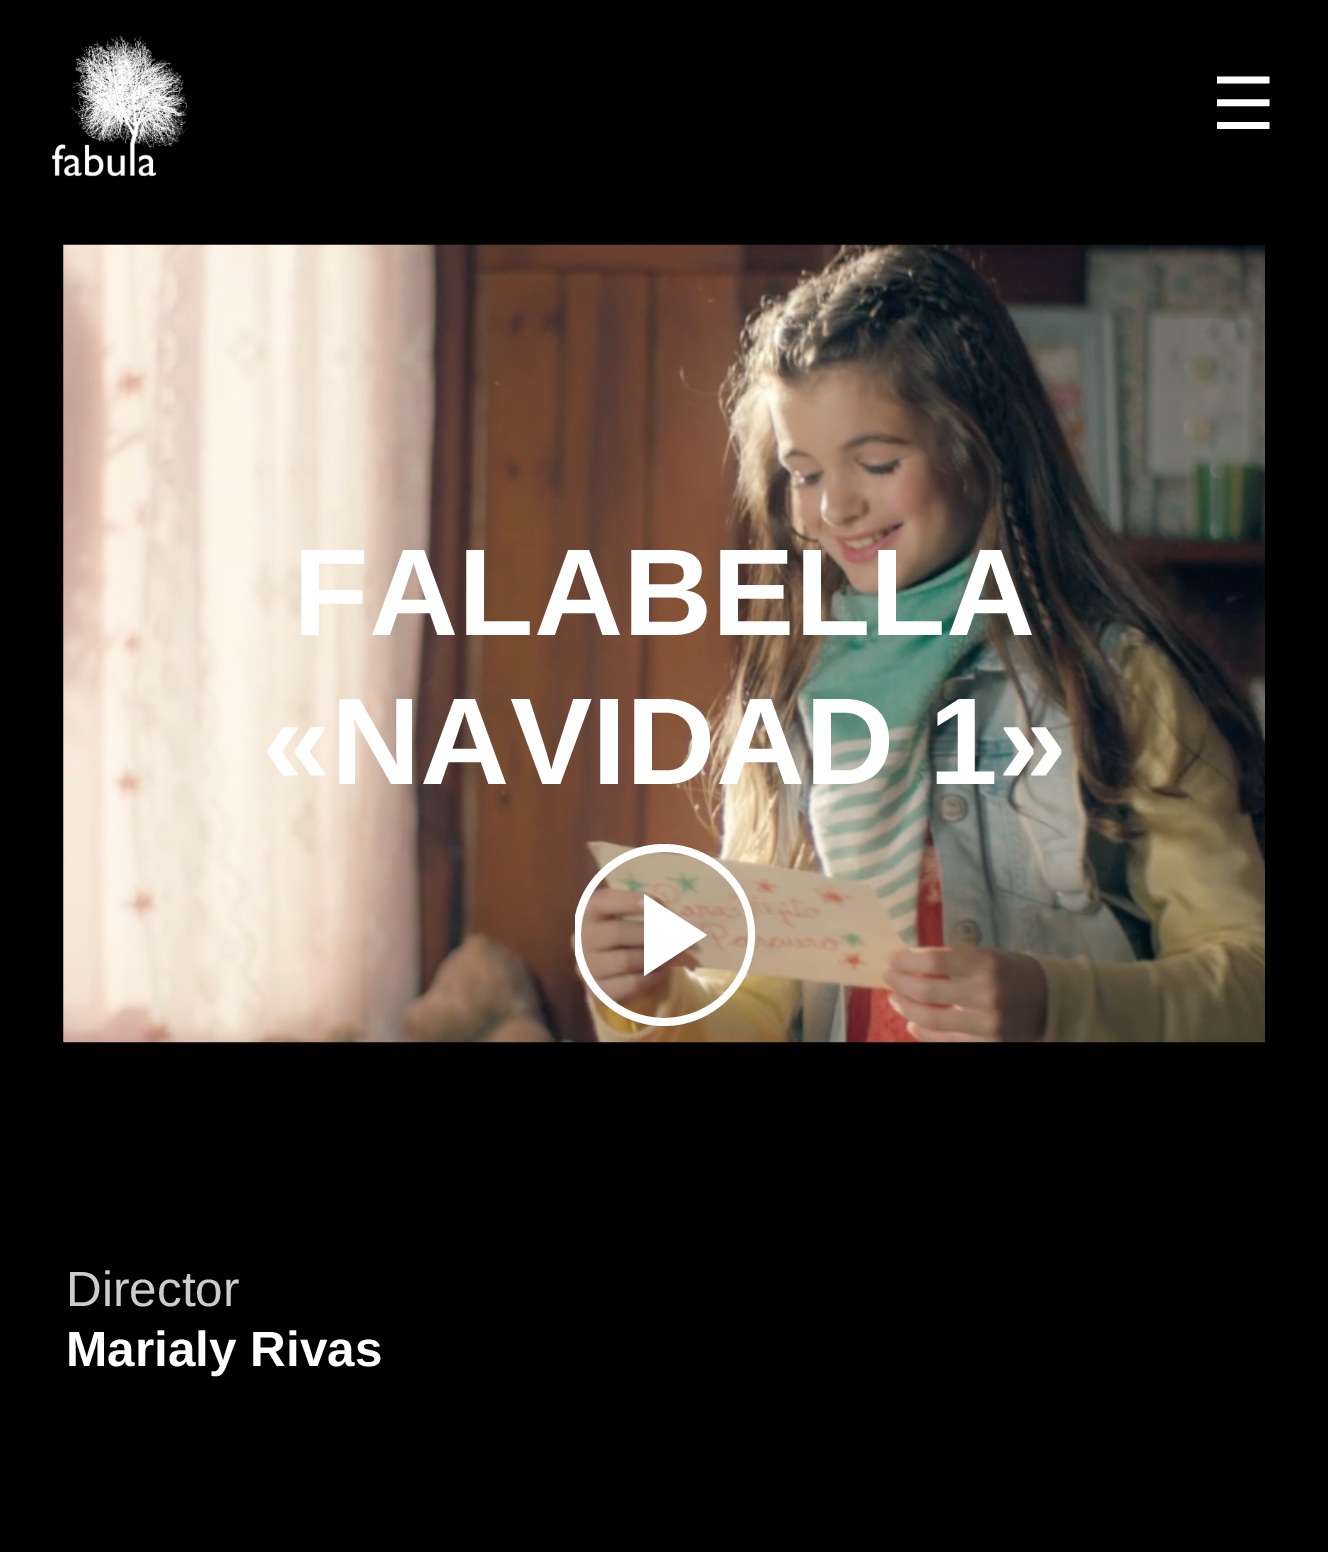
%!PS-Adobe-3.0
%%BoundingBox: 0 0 1328 1552
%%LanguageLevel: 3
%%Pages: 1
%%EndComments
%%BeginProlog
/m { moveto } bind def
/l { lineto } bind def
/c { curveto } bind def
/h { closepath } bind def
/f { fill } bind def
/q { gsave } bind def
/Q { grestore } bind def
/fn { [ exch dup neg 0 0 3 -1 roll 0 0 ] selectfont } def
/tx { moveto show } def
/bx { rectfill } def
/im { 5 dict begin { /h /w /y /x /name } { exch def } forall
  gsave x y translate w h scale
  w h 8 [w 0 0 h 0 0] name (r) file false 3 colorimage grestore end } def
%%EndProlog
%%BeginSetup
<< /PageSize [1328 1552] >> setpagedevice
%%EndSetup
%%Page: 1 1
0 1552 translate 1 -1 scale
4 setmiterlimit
0 setgray
0 0 1328 1552 bx
(image0.raw) 52 33 136 144 im
/DejaVuSans-Regular 72 fn
1 setgray
(☰) 1211 129 tx
(image1.raw) 63 244 1202 799 im
/LiberationSans-Bold 123.75 fn
(FALABELLA) 293 635 tx
(«NAVIDAD 1») 262 784 tx
644 976 m 707 935 l 644 894 l h f
q
575 844 181 182 rectclip
664 844 m 614 844 573 885 573 935 c 573 985 614 1026 664 1026 c 714 1026 755 985 755 935 c 755 885 714 844 664 844 c h 664 1018 m 618 1018 581 981 581 935 c 581 889 618 852 664 852 c 710 852 748 889 748 935 c 748 981 710 1018 664 1018 c h f
Q
/LiberationSans-Regular 49.5 fn
0.8 setgray
(Director) 66 1306 tx
/LiberationSans-Bold 49.5 fn
1 setgray
(Marialy Rivas) 66 1366 tx
showpage
%%EOF
